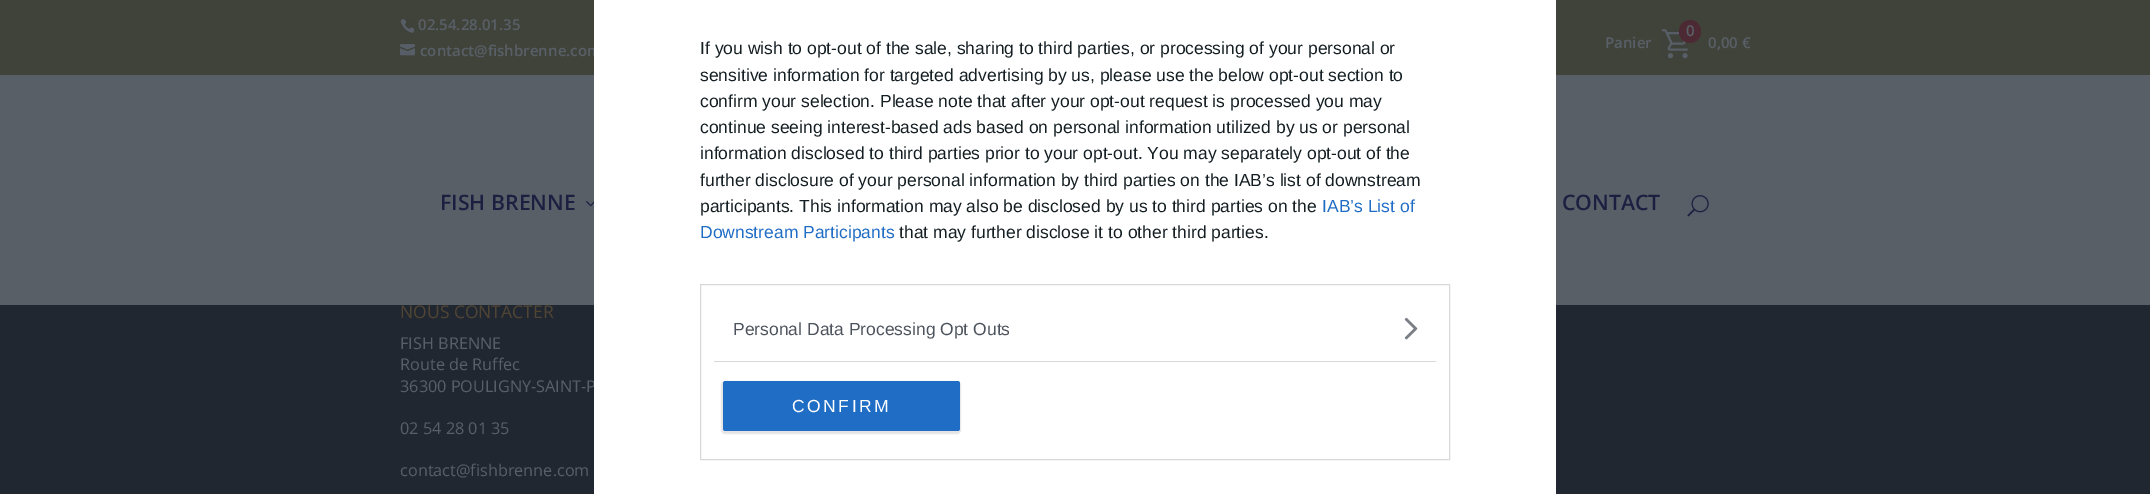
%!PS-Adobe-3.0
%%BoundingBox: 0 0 2150 494
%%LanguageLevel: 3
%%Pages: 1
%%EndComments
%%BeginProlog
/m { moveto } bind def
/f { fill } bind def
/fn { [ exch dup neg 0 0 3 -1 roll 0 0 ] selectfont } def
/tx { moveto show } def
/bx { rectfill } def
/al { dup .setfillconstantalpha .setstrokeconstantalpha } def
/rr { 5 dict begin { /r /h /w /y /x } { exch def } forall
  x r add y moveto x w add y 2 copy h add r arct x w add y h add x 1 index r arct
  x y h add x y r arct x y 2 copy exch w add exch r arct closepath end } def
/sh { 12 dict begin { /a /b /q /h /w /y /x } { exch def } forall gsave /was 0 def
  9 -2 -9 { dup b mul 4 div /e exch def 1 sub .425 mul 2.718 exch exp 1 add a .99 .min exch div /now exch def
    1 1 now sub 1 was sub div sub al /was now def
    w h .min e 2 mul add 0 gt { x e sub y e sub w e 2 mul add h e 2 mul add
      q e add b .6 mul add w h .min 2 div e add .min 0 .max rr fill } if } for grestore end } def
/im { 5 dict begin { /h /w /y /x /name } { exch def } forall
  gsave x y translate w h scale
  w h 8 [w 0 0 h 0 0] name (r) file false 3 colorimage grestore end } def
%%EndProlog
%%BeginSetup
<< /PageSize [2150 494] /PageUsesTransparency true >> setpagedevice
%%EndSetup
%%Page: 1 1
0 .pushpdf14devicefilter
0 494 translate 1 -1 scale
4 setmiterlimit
0.129 0.153 0.188 setrgbcolor
0 0 2150 494 bx
0.247 0.263 0.227 setrgbcolor
0 0 2150 75 bx
(image0.raw) 400 19 15 14 im
/OpenSans-SemiBold 15 fn
0.349 0.373 0.404 setrgbcolor
(02.54.28.01.35) 418 30 tx
(image1.raw) 400 44 15 12 im
(contact@fishbrenne.com) 420 56 tx
(Panier) 1605 48 tx
(image2.raw) 1661 29 27 30 im
0.302 0.165 0.2 setrgbcolor
1679 20 22 23 11 rr f
0.349 0.373 0.404 setrgbcolor
(0) 1686 36 tx
(0,00 €) 1708 48 tx
0.1 al
0.098 0.122 0.153 setrgbcolor
402 305 147 1 bx
1 al
0.349 0.373 0.404 setrgbcolor
0 75 2150 230 bx
/OpenSans-SemiBold 21.25 fn
0.114 0.122 0.255 setrgbcolor
(FISH BRENNE) 440 210 tx
(image3.raw) 586 201 8 6 im
(CONTACT) 1562 210 tx
(image4.raw) 1687 195 22 22 im
/OpenSans-Regular 17.5 fn
0.314 0.271 0.204 setrgbcolor
(NOUS CONTACTER) 400 318 tx
/OpenSans-Regular 16.25 fn
0.349 0.373 0.404 setrgbcolor
(FISH BRENNE) 400 349 tx
(Route de Ruffec) 400 370 tx
(36300 POULIGNY-SAINT-P) 400 392 tx
(02 54 28 01 35) 400 434 tx
(contact@fishbrenne.com) 400 476 tx
1 setgray
594 0 962 494 bx
/LiberationSans-Regular 17.5 fn
0.078 0.118 0.137 setrgbcolor
(If you wish to opt-out of the sale, sharing to third parties, or processing of your personal or) 700 54 tx
(sensitive information for targeted advertising by us, please use the below opt-out section to) 700 81 tx
(confirm your selection. Please note that after your opt-out request is processed you may) 700 107 tx
(continue seeing interest-based ads based on personal information utilized by us or personal) 700 133 tx
(information disclosed to third parties prior to your opt-out. You may separately opt-out of the) 700 159 tx
(further disclosure of your personal information by third parties on the IAB’s list of downstream) 700 186 tx
(participants. This information may also be disclosed by us to third parties on the) 700 212 tx
0.125 0.427 0.773 setrgbcolor
(IAB’s List of) 1322 212 tx
(Downstream Participants) 700 238 tx
0.078 0.118 0.137 setrgbcolor
(that may further disclose it to other third parties.) 899 238 tx
0.847 setgray
700.5 284.5 749 175 rectstroke
714 361 722 1 bx
0.302 0.329 0.365 setrgbcolor
(Personal Data Processing Opt Outs) 733 335 tx
(image5.raw) 1404 317 14 23 im
0 setgray
721 381 240 53 4 0.5 0.1 sh
0.125 0.427 0.773 setrgbcolor
723 381 237 50 2.5 rr f
1 setgray
792 412 m 2.5 0 (CONFIRM) ashow
.poppdf14devicefilter showpage
%%EOF
